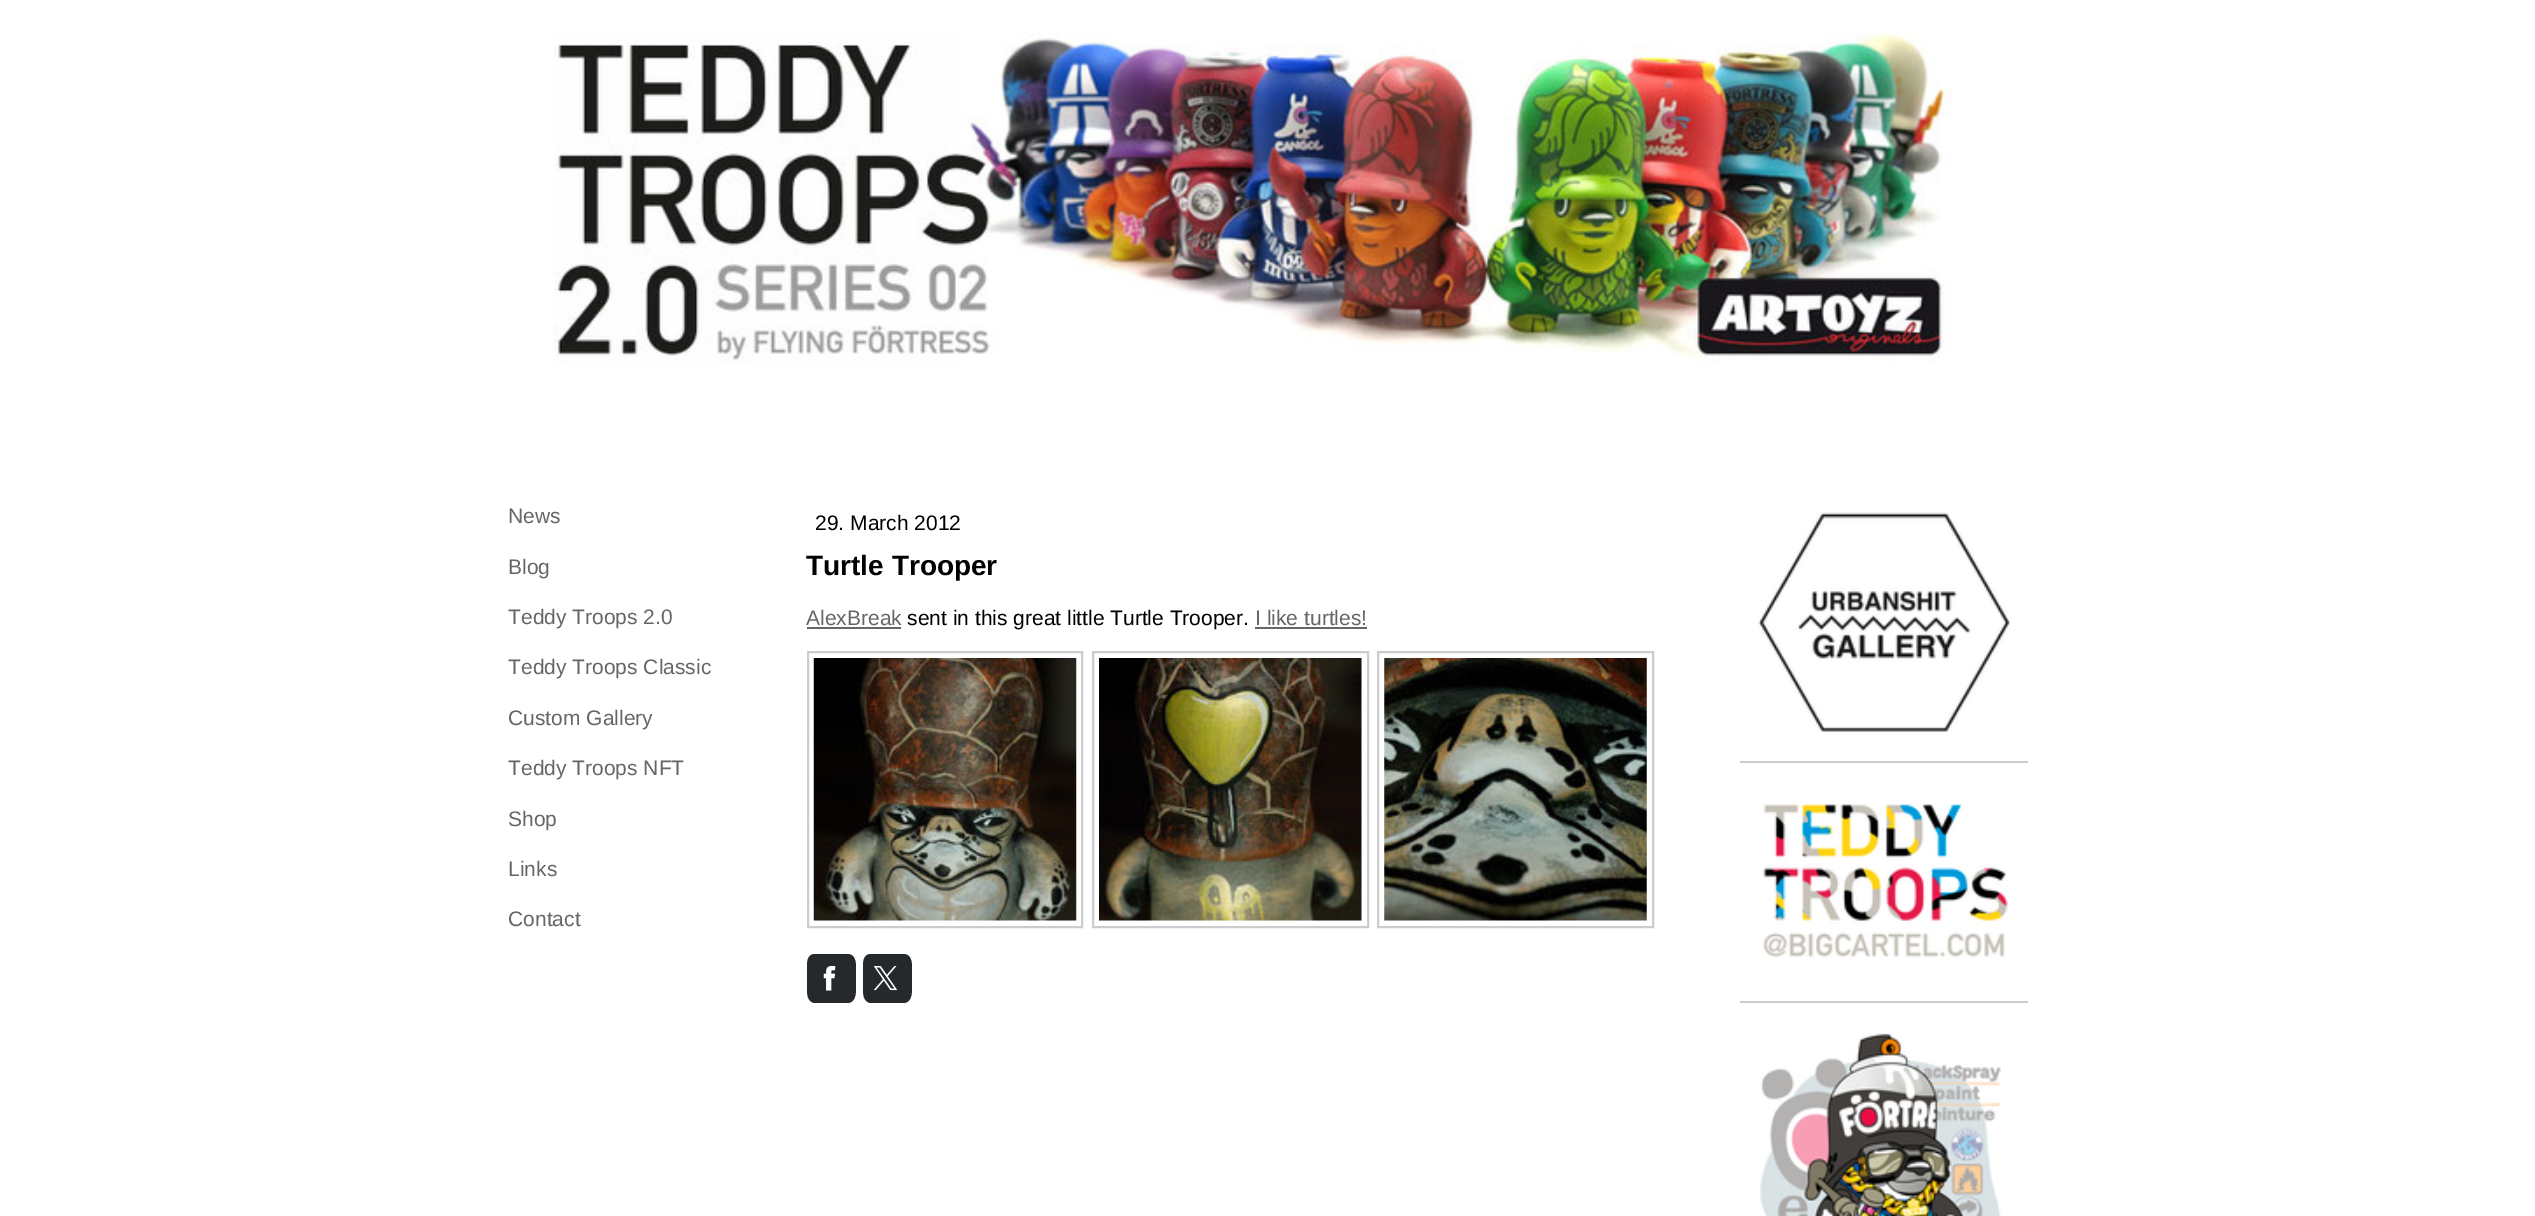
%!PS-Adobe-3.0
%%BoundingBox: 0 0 2535 1216
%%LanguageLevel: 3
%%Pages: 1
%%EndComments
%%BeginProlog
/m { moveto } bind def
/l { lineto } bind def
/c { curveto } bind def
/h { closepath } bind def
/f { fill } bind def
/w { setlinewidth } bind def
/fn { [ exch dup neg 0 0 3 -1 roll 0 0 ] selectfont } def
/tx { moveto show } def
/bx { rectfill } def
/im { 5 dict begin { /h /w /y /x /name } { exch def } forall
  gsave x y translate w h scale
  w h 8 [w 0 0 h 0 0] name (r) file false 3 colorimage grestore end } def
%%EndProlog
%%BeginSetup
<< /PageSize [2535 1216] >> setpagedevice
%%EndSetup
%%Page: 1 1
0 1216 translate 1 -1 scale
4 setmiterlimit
1 setgray
0 0 2535 1216 bx
(image0.raw) 553 31 1400 333 im
/LiberationSans-Regular 21 fn
0.4 setgray
(News) 508 523 tx
(Blog) 508 574 tx
(Teddy Troops 2.0) 508 624 tx
(Teddy Troops Classic) 508 674 tx
(Custom Gallery) 508 725 tx
(Teddy Troops NFT) 508 775 tx
(Shop) 508 826 tx
(Links) 508 876 tx
(Contact) 508 926 tx
0 setgray
(29. March 2012) 815 530 tx
/LiberationSans-Bold 28 fn
(Turtle Trooper) 806 575 tx
/LiberationSans-Regular 21 fn
0.4 setgray
(AlexBreak) 806 625 tx
807 627 94 2 bx
0 setgray
(sent in this great little Turtle Trooper.) 907 625 tx
0.4 setgray
(I like turtles!) 1255 625 tx
1255 627 112 2 bx
0.8 setgray
2 w
808 652 274 275 rectstroke
(image1.raw) 813 658 264 263 im
1093 652 275 275 rectstroke
(image2.raw) 1099 658 263 263 im
1378 652 275 275 rectstroke
(image3.raw) 1384 658 263 263 im
0.145 0.161 0.169 setrgbcolor
847 1003 m 814 1003 l 807 1001 807 994 807 988 c 807 968 l 807 962 807 955 814 954 c 847 954 l 855 954 856 961 856 968 c 856 988 l 856 995 855 1003 847 1003 c h f
(image4.raw) 823 966 13 25 im
903 1003 m 870 1003 l 863 1001 863 994 863 988 c 863 968 l 863 962 863 955 870 954 c 903 954 l 911 954 912 961 912 968 c 912 988 l 912 995 911 1003 903 1003 c h f
(image5.raw) 873 966 25 25 im
(image6.raw) 1758 512 252 220 im
0.8 setgray
1740 761 288 2 bx
(image7.raw) 1763 803 245 155 im
1740 1001 288 2 bx
(image8.raw) 1760 1033 241 183 im
showpage
%%EOF
